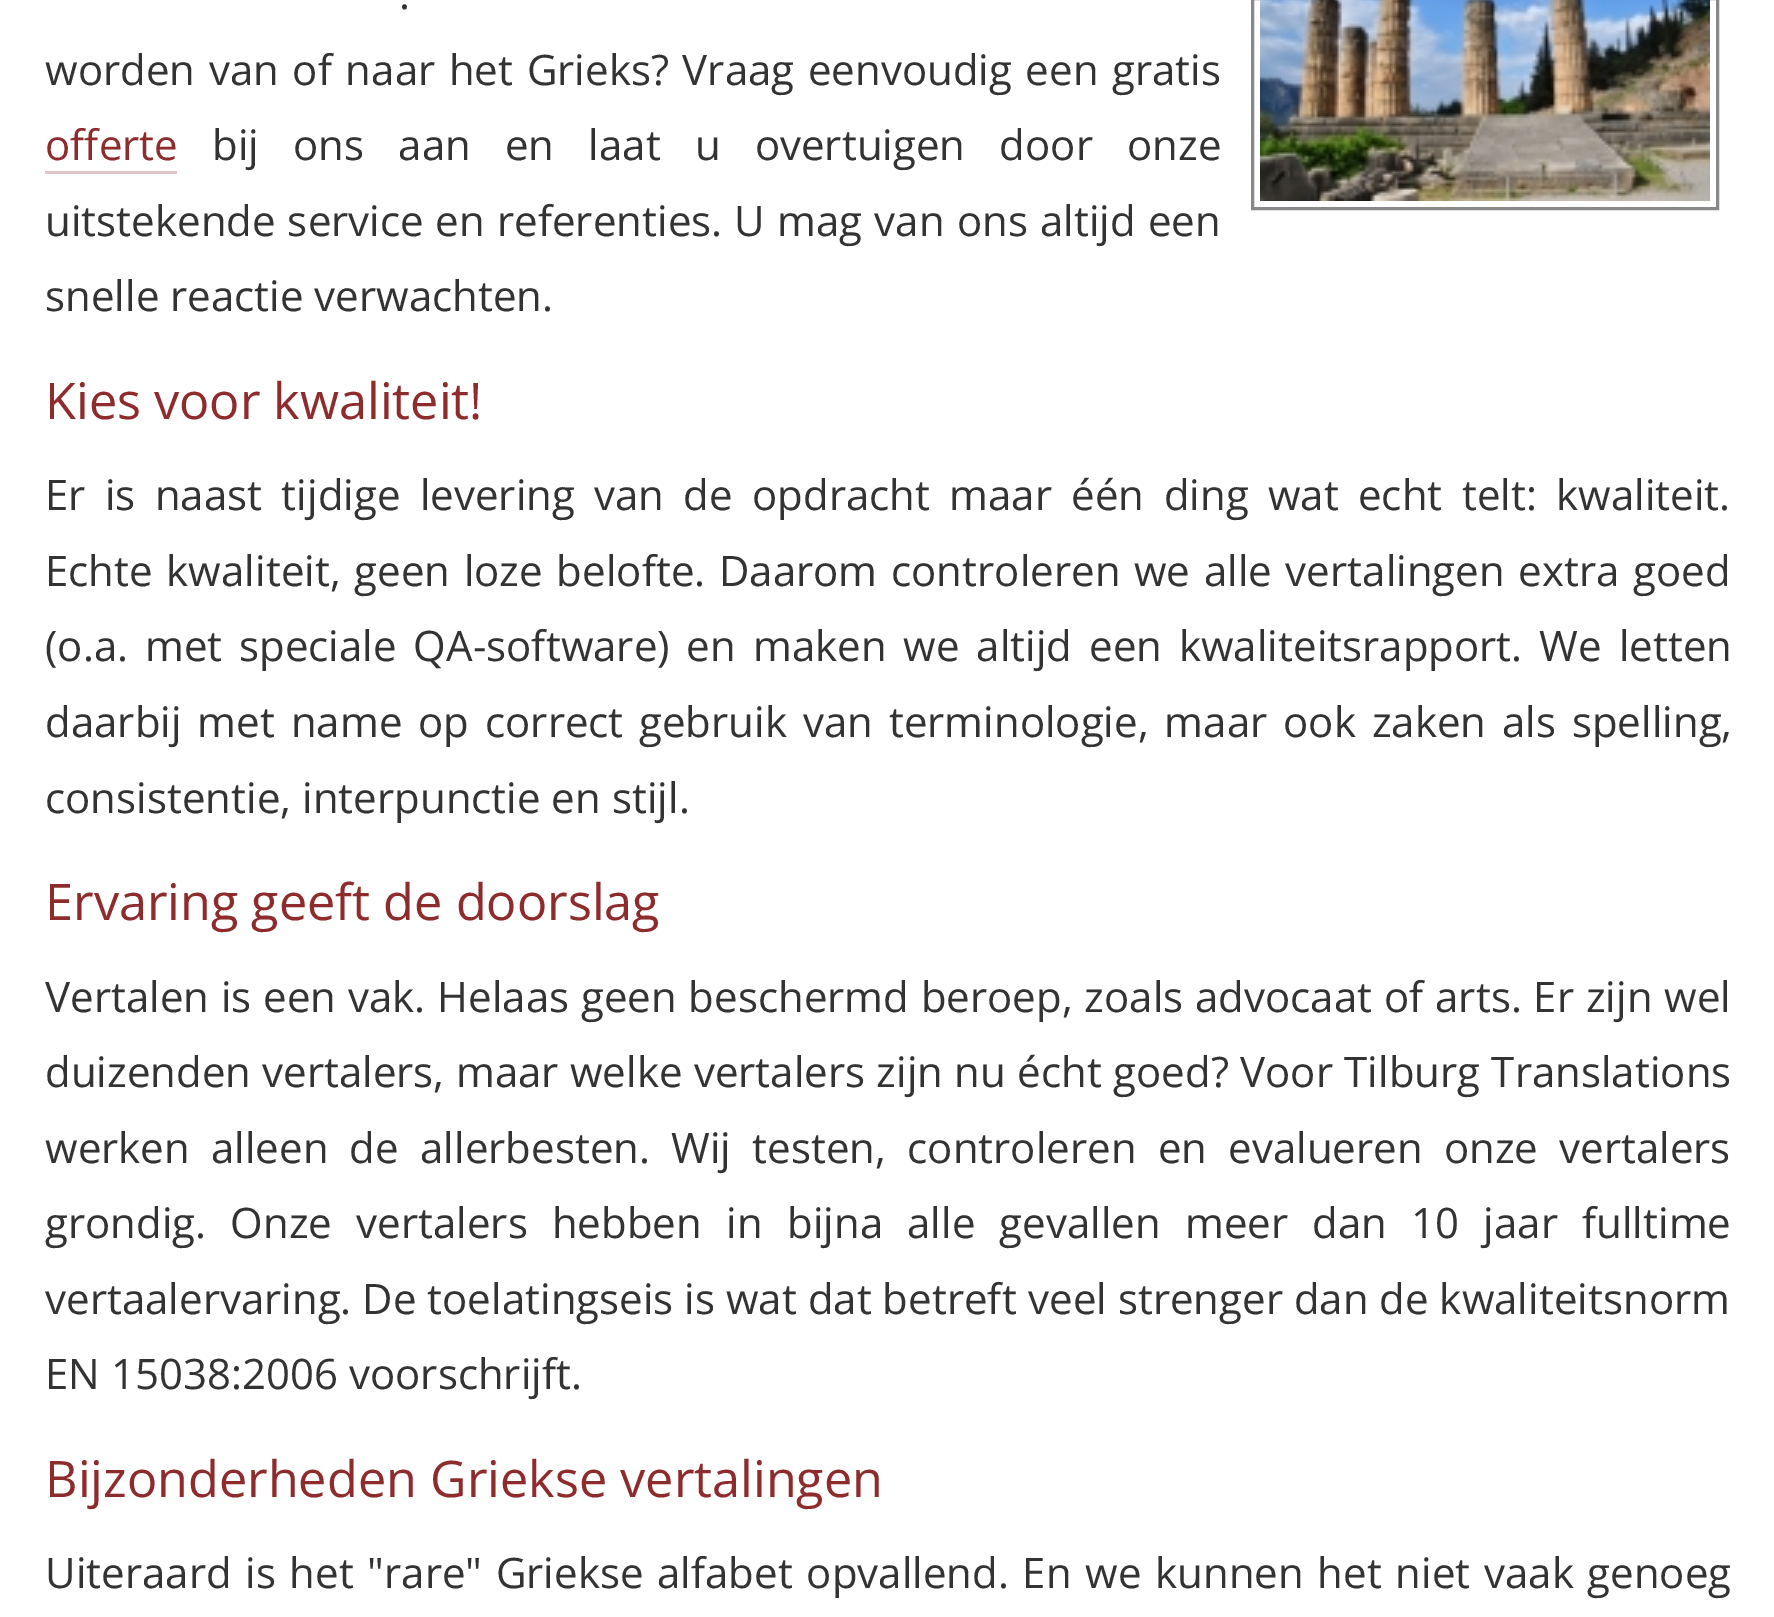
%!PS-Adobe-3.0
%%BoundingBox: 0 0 1774 1617
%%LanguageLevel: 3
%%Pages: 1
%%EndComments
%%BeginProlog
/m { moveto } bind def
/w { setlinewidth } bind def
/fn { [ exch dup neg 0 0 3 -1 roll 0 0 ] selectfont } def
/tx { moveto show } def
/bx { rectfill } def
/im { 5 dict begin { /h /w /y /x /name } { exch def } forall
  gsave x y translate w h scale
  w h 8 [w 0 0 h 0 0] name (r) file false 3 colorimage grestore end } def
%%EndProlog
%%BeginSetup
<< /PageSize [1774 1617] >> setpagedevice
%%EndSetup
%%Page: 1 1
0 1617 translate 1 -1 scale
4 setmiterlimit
1 setgray
0 0 1774 1617 bx
/OpenSans-Regular 42 fn
0.2 setgray
(.) 399 9 tx
45 85 m 2.75 0 32 (worden van of naar het Grieks? Vraag eenvoudig een gratis) widthshow
0.557 0.169 0.173 setrgbcolor
(offerte) 45 160 tx
0.882 0.776 0.78 setrgbcolor
45 171 132 3 bx
0.2 setgray
212 160 m 23.25 0 32 (bij ons aan en laat u overtuigen door onze) widthshow
45 236 m 1 0 32 (uitstekende service en) widthshow
497 236 m 1.25 0 32 (referenties. U mag van ons altijd een) widthshow
(snelle reactie verwachten.) 45 311 tx
0.533 setgray
3 w
1252.5 -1.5 465 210 rectstroke
(image0.raw) 1260 0 450 201 im
/OpenSans-Regular 50.4 fn
0.557 0.169 0.173 setrgbcolor
(Kies voor kwaliteit!) 45 419 tx
/OpenSans-Regular 42 fn
0.2 setgray
45 510 m 8.4 0 32 (Er is naast tijdige levering van de opdracht maar één ding wat echt telt: kwaliteit.) widthshow
45 586 m 2.75 0 32 (Echte kwaliteit, geen loze belofte. Daarom controleren we alle vertalingen extra goed) widthshow
45 661 m 6 0 32 (\(o.a. met) widthshow
239 661 m 6 0 32 (speciale QA-software\) en maken we altijd een kwaliteitsrapport. We letten) widthshow
45 737 m 5 0 32 (daarbij met name op correct) widthshow
639 737 m 5 0 32 (gebruik van terminologie, maar ook zaken als spelling,) widthshow
(consistentie, interpunctie en stijl.) 45 813 tx
/OpenSans-Regular 50.4 fn
0.557 0.169 0.173 setrgbcolor
(Ervaring geeft de doorslag) 45 920 tx
/OpenSans-Regular 42 fn
0.2 setgray
45 1012 m 0.9 0 32 (Vertalen is een vak. Helaas geen beschermd beroep, zoals advocaat of arts. Er zijn wel) widthshow
(duizenden) 45 1087 tx
262 1087 m 0.5 0 32 (vertalers, maar welke vertalers zijn nu écht goed? Voor Tilburg Translations) widthshow
45 1163 m 10.25 0 32 (werken alleen de) widthshow
420 1163 m 10.25 0 32 (allerbesten. Wij testen, controleren en evalueren onze vertalers) widthshow
45 1238 m 13.25 0 32 (grondig. Onze vertalers hebben in) widthshow
787 1238 m 13.25 0 32 (bijna alle gevallen meer dan 10 jaar fulltime) widthshow
(vertaalervaring. De toelatingseis is wat dat betreft) 45 1314 tx
(veel strenger dan de kwaliteitsnorm) 1028 1314 tx
(EN 15038:2006 voorschrijft.) 45 1389 tx
/OpenSans-Regular 50.4 fn
0.557 0.169 0.173 setrgbcolor
(Bijzonderheden Griekse vertalingen) 45 1497 tx
/OpenSans-Regular 42 fn
0.2 setgray
45 1588 m 2.75 0 32 (Uiteraard is het "rare" Griekse alfabet opvallend. En we kunnen het niet vaak genoeg) widthshow
showpage
%%EOF
